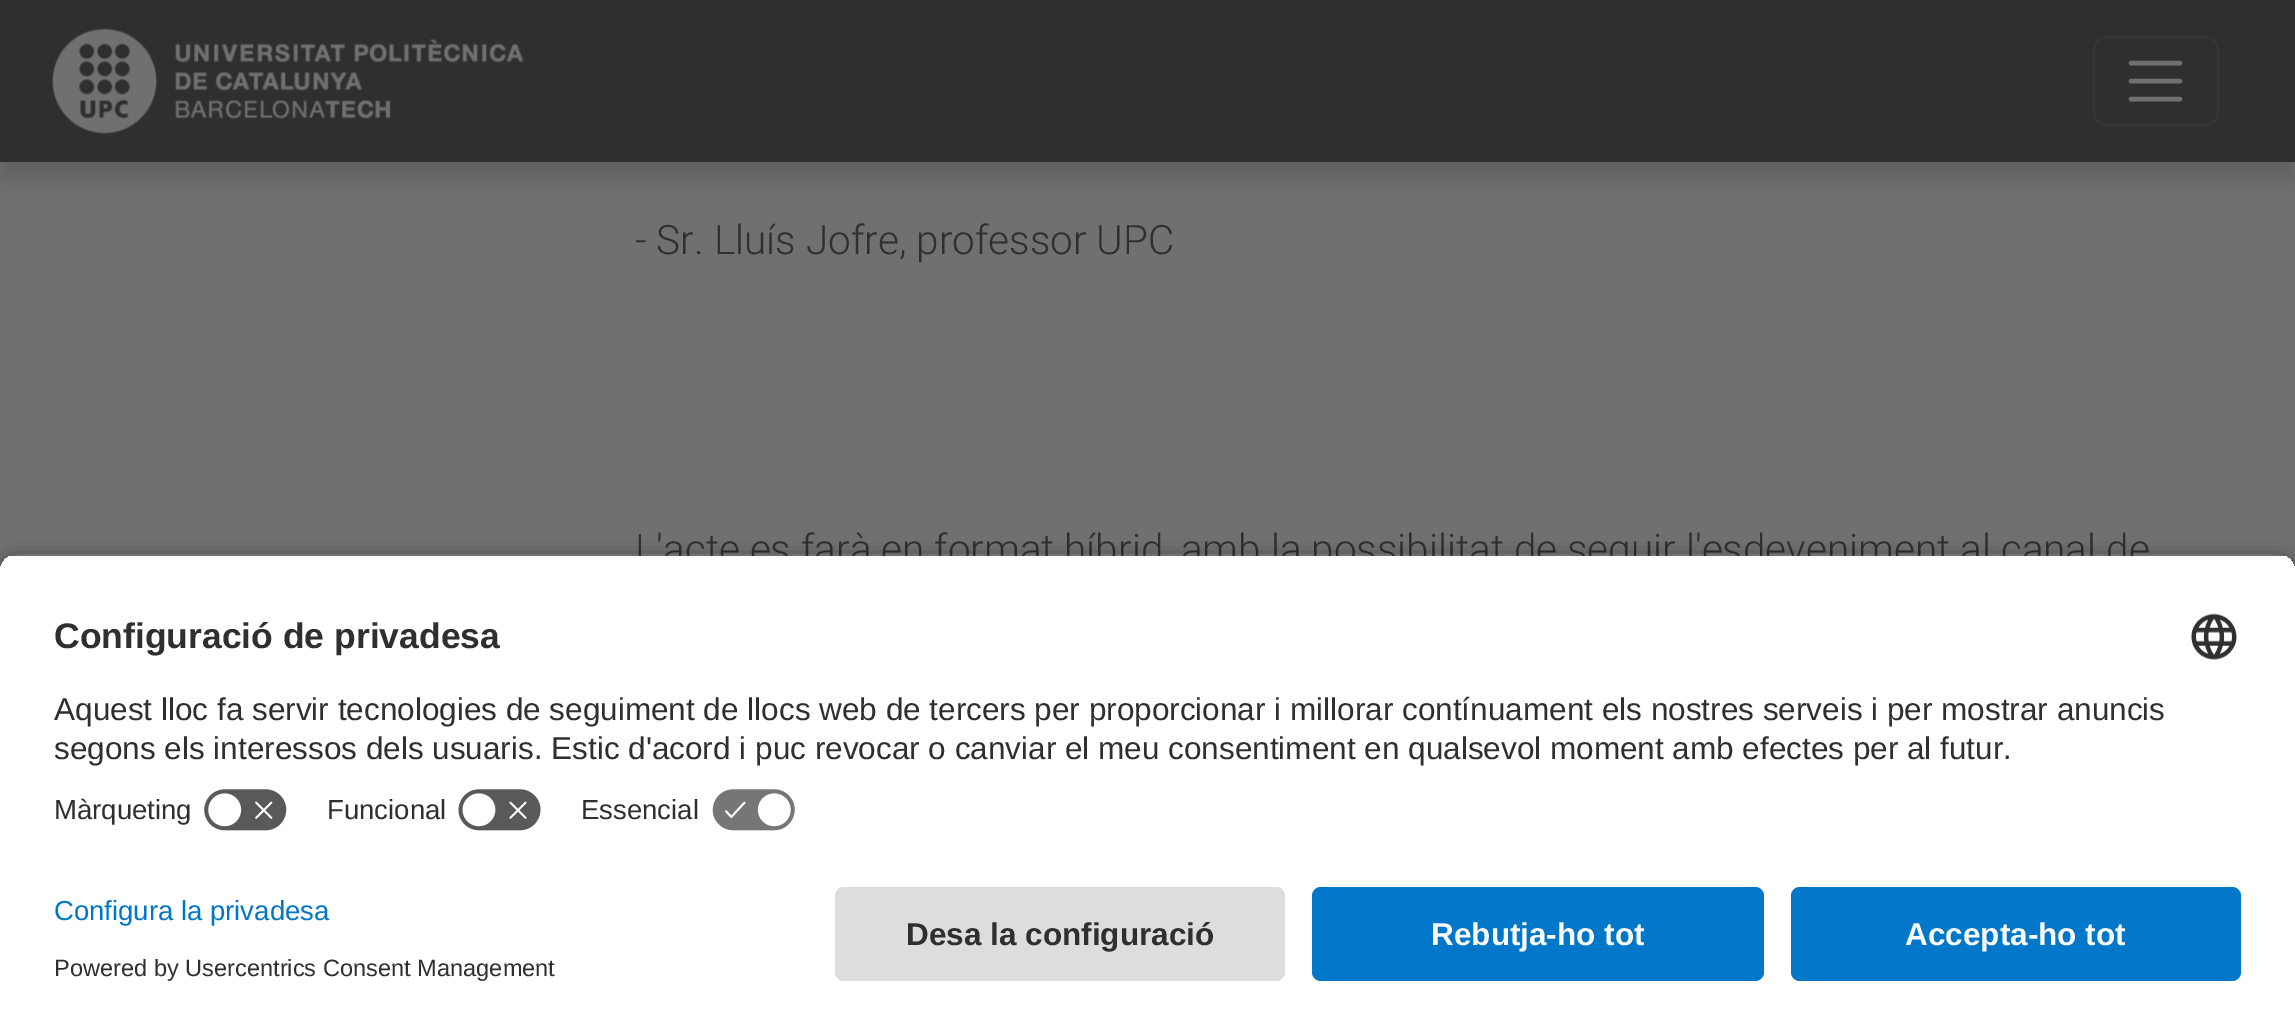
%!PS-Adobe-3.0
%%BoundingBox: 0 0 2295 1035
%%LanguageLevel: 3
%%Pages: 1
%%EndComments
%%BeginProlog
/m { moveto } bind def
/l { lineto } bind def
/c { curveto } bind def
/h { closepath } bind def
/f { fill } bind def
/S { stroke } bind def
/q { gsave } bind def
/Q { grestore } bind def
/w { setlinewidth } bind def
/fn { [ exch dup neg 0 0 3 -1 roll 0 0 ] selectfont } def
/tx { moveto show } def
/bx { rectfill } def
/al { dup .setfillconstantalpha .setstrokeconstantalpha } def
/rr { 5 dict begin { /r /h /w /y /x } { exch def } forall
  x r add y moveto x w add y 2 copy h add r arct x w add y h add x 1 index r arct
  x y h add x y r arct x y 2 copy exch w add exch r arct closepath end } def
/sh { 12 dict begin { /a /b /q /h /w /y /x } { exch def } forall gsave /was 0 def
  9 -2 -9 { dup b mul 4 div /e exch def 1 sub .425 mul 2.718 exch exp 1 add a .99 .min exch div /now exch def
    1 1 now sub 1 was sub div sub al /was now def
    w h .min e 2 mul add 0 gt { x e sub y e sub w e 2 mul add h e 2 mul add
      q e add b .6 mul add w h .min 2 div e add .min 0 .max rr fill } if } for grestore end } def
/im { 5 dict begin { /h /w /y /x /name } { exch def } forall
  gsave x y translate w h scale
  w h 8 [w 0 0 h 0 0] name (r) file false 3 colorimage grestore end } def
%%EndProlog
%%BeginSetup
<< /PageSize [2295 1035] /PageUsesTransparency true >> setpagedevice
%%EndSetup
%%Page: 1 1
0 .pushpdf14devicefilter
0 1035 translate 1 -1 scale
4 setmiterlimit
0.439 setgray
0 0 2295 1035 bx
0.141 setgray
0 16 2295 162 0 9 0.2 sh
0.18 0.184 0.188 setrgbcolor
0 0 2295 162 bx
(image0.raw) 52 28 472 106 im
0.204 0.208 0.212 setrgbcolor
2 w
2094 37 124 88 13 rr S
0.439 setgray
4.5 w
1 setlinecap
2131 63 m 2180 63 l 2131 81 m 2180 81 l 2131 99 m 2180 99 l S
/Roboto-Light 40.5 fn
0.18 0.184 0.188 setrgbcolor
(- Sr. Lluís Jofre, professor UPC) 635 254 tx
(L'acte es farà en format híbrid, amb la possibilitat de seguir l'esdeveniment al canal de) 635 563 tx
q
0 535 m 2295 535 l 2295 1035 l 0 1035 l h 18 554 m 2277 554 l 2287 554 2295 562 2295 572 c 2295 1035 l 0 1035 l 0 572 l 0 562 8 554 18 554 c h eoclip newpath
0 setgray
0 560 2295 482 18 8 0.8 sh
Q
q
18 554 m 2277 554 l 2287 554 2295 562 2295 572 c 2295 869 l 0 869 l 0 572 l 0 562 8 554 18 554 c h clip newpath
1 setgray
0 556 2295 313 bx
0 556 2295 223 bx
Q
/LiberationSans-Bold 35.5 fn
(Configuració de privadesa) 54 648 tx
(image1.raw) 2191 613 46 47 im
/LiberationSans-Regular 31.5 fn
(Aquest lloc fa servir tecnologies de seguiment de llocs web de tercers per proporcionar i millorar contínuament els nostres serveis i per mostrar anuncis) 54 720 tx
(segons els interessos dels usuaris. Estic d'acord i puc revocar o canviar el meu consentiment en qualsevol moment amb efectes per al futur.) 54 759 tx
/LiberationSans-Regular 27.5 fn
(Màrqueting) 54 819 tx
(image2.raw) 204 789 83 42 im
(Funcional) 327 819 tx
(image3.raw) 458 789 83 42 im
(Essencial) 581 819 tx
(image4.raw) 712 789 83 42 im
1 setgray
0 869 2295 166 bx
0 0.467 0.784 setrgbcolor
(Configura la privadesa) 54 920 tx
/LiberationSans-Regular 23.6 fn
0.18 0.184 0.188 setrgbcolor
(Powered by Usercentrics Consent Management) 54 976 tx
0.867 setgray
835 887 450 94 9 rr f
/LiberationSans-Bold 31.5 fn
0.18 0.184 0.188 setrgbcolor
(Desa la configuració) 906 945 tx
0 0.467 0.784 setrgbcolor
1312 887 452 94 9 rr f
0.98 setgray
(Rebutja-ho tot) 1431 945 tx
0 0.467 0.784 setrgbcolor
1791 887 450 94 9 rr f
0.98 setgray
(Accepta-ho tot) 1905 945 tx
.poppdf14devicefilter showpage
%%EOF
